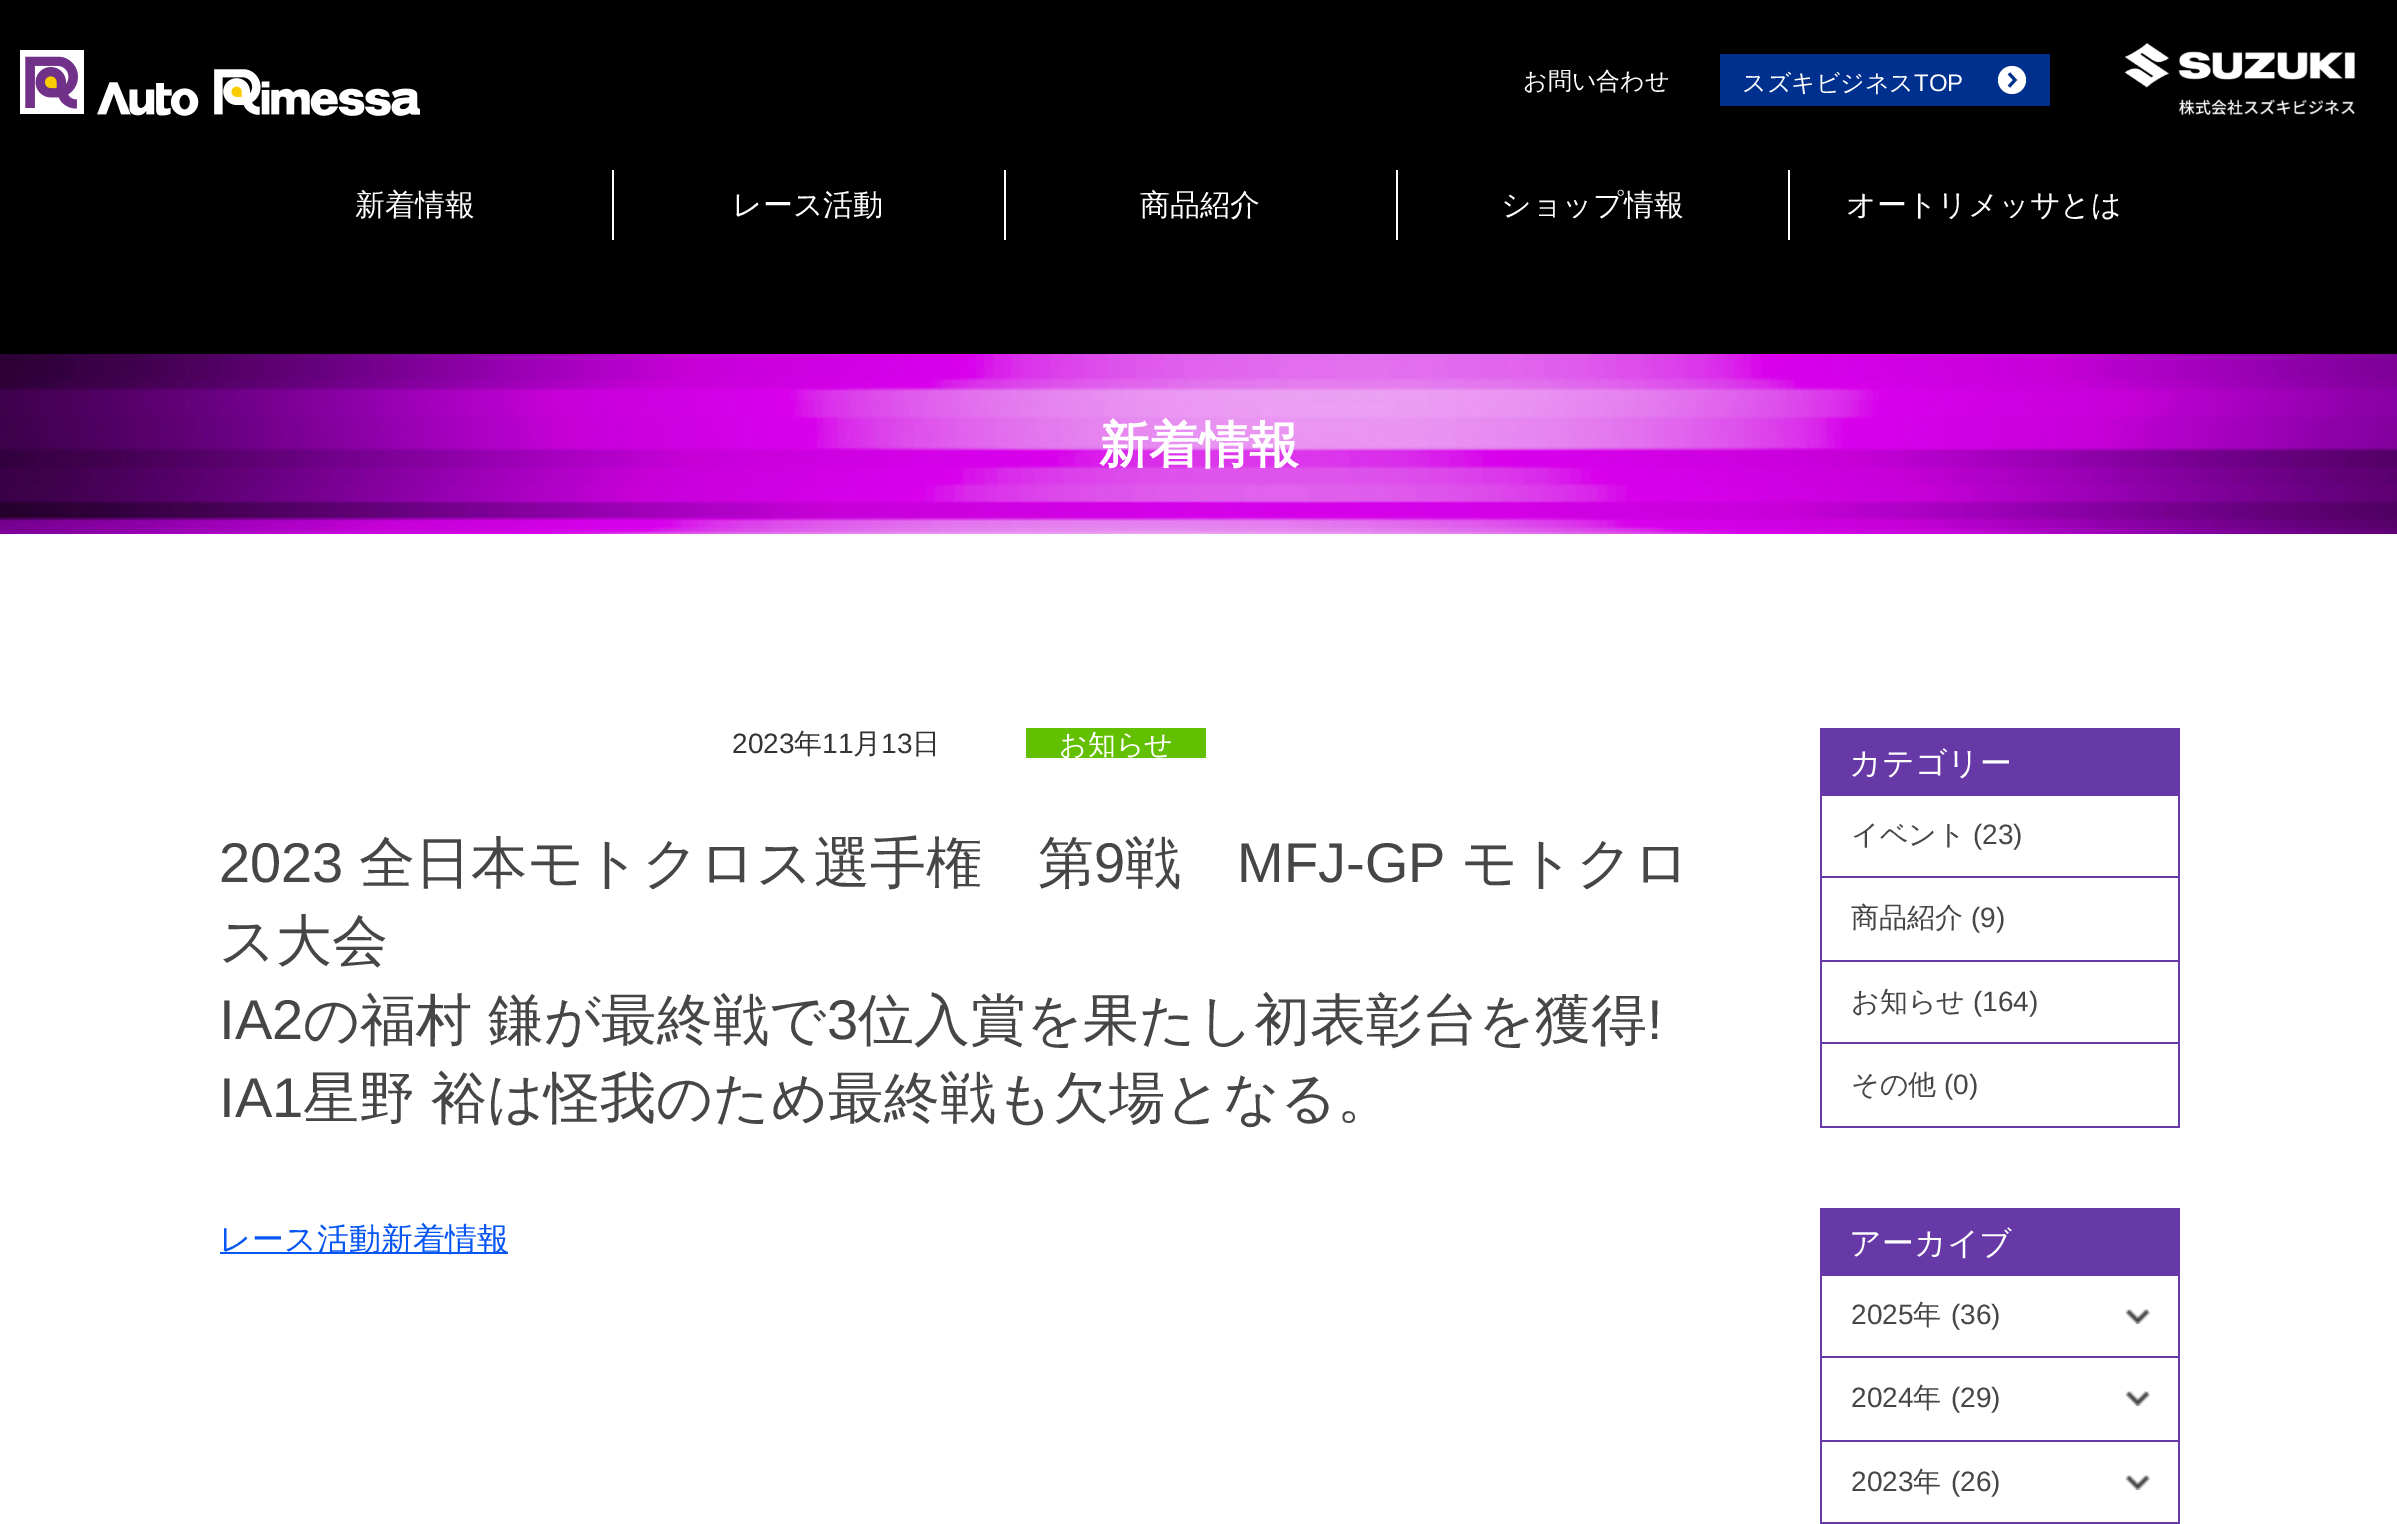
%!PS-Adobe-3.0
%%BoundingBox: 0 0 2397 1524
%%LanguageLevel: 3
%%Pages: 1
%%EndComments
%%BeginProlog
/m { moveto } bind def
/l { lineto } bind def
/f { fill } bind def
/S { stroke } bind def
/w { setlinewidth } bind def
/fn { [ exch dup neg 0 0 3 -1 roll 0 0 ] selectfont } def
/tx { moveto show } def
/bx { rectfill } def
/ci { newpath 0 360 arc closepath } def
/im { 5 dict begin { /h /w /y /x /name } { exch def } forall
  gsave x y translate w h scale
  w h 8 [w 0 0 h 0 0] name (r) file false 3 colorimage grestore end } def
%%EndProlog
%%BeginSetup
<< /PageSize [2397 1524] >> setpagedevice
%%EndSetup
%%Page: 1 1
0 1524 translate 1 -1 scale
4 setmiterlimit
0 setgray
0 0 2397 1524 bx
(image0.raw) 20 50 400 66 im
/WenQuanYiZenHei-Medium 24 fn
1 setgray
(お問い合わせ) 1523 89 tx
0 0.188 0.557 setrgbcolor
1720 54 330 52 bx
1 setgray
2012 80 14 ci f
0 0.188 0.557 setrgbcolor
3 w
2009 73.5 m 2015 80 l 2009 86.5 l S
1 setgray
(スズキビジネス) 1742 91 tx
/LiberationSans-Regular 24 fn
(TOP) 1914 91 tx
(image1.raw) 2124 43 232 73 im
/WenQuanYiZenHei-Medium 30 fn
(新着情報) 355 215 tx
612 170 2 70 bx
(レース活動) 732 215 tx
1004 170 2 70 bx
(商品紹介) 1140 215 tx
1396 170 2 70 bx
(ショップ情報) 1501 215 tx
1788 170 2 70 bx
(オートリメッサとは) 1846 215 tx
(image2.raw) 0 354 2397 180 im
/WenQuanYiZenHei-Bold 50 fn
(新着情報) 1099 462 tx
0 534 2397 990 bx
/LiberationSans-Regular 28 fn
0.2 setgray
(2023) 732 753 tx
/WenQuanYiZenHei-Medium 28 fn
(年) 794 753 tx
/LiberationSans-Regular 28 fn
(11) 822 753 tx
/WenQuanYiZenHei-Medium 28 fn
(月) 853 753 tx
/LiberationSans-Regular 28 fn
(13) 881 753 tx
/WenQuanYiZenHei-Medium 28 fn
(日) 912 753 tx
0.388 0.753 0 setrgbcolor
1026 728 180 30 bx
1 setgray
(お知らせ) 1059 754 tx
/LiberationSans-Regular 56 fn
0.275 setgray
(2023) 219 882 tx
/WenQuanYiZenHei-Medium 56 fn
(全日本モトクロス選手権　第) 359 882 tx
/LiberationSans-Regular 56 fn
(9) 1094 882 tx
/WenQuanYiZenHei-Medium 56 fn
(戦) 1125 882 tx
/LiberationSans-Regular 56 fn
(MFJ-GP) 1237 882 tx
/WenQuanYiZenHei-Medium 56 fn
(モトクロ) 1461 882 tx
(ス大会) 219 960 tx
/LiberationSans-Regular 56 fn
(IA2) 219 1039 tx
/WenQuanYiZenHei-Medium 56 fn
303 1039 m -1 0 32 (の福村 鎌が最終戦で) widthshow
/LiberationSans-Regular 56 fn
(3) 827 1039 tx
/WenQuanYiZenHei-Medium 56 fn
(位入賞を果たし初表彰台を獲得) 858 1039 tx
/LiberationSans-Regular 56 fn
(!) 1647 1039 tx
(IA1) 219 1117 tx
/WenQuanYiZenHei-Medium 56 fn
303 1117 m -1 0 32 (星野 裕は怪我のため最終戦も欠場となる。) widthshow
0.024 0.337 0.953 setrgbcolor
220 1252 288 2 bx
/WenQuanYiZenHei-Medium 32 fn
(レース活動新着情報) 219 1250 tx
0.404 0.224 0.655 setrgbcolor
1820 728 360 68 bx
1 setgray
(カテゴリー) 1849 774 tx
0.404 0.224 0.655 setrgbcolor
1820 1126 360 2 bx
2178 794 2 82 bx
1820 794 2 82 bx
/WenQuanYiZenHei-Medium 28 fn
0.275 setgray
(イベント) 1851 844 tx
/LiberationSans-Regular 28 fn
(\(23\)) 1973 844 tx
0.404 0.224 0.655 setrgbcolor
1820 876 360 2 bx
2178 876 2 84 bx
1820 876 2 84 bx
/WenQuanYiZenHei-Medium 28 fn
0.275 setgray
(商品紹介) 1851 927 tx
/LiberationSans-Regular 28 fn
(\(9\)) 1971 927 tx
0.404 0.224 0.655 setrgbcolor
1820 960 360 2 bx
2178 960 2 82 bx
1820 960 2 82 bx
/WenQuanYiZenHei-Medium 28 fn
0.275 setgray
(お知らせ) 1851 1011 tx
/LiberationSans-Regular 28 fn
(\(164\)) 1973 1011 tx
0.404 0.224 0.655 setrgbcolor
1820 1042 360 2 bx
2178 1042 2 84 bx
1820 1042 2 84 bx
/WenQuanYiZenHei-Medium 28 fn
0.275 setgray
(その他) 1851 1094 tx
/LiberationSans-Regular 28 fn
(\(0\)) 1944 1094 tx
0.404 0.224 0.655 setrgbcolor
1820 1208 360 68 bx
/WenQuanYiZenHei-Medium 32 fn
1 setgray
(アーカイブ) 1849 1254 tx
0.404 0.224 0.655 setrgbcolor
2178 1274 2 82 bx
1820 1274 2 82 bx
/LiberationSans-Regular 28 fn
0.275 setgray
(2025) 1851 1324 tx
/WenQuanYiZenHei-Medium 28 fn
(年) 1913 1324 tx
/LiberationSans-Regular 28 fn
(\(36\)) 1951 1324 tx
(image3.raw) 2126 1309 24 15 im
0.404 0.224 0.655 setrgbcolor
1820 1356 360 2 bx
2178 1356 2 84 bx
1820 1356 2 84 bx
0.275 setgray
(2024) 1851 1407 tx
/WenQuanYiZenHei-Medium 28 fn
(年) 1913 1407 tx
/LiberationSans-Regular 28 fn
(\(29\)) 1951 1407 tx
(image3.raw) 2126 1391 24 15 im
0.404 0.224 0.655 setrgbcolor
1820 1440 360 2 bx
2178 1440 2 82 bx
1820 1440 2 82 bx
0.275 setgray
(2023) 1851 1491 tx
/WenQuanYiZenHei-Medium 28 fn
(年) 1913 1491 tx
/LiberationSans-Regular 28 fn
(\(26\)) 1951 1491 tx
(image3.raw) 2126 1475 24 15 im
0.404 0.224 0.655 setrgbcolor
1820 1522 360 2 bx
showpage
%%EOF
